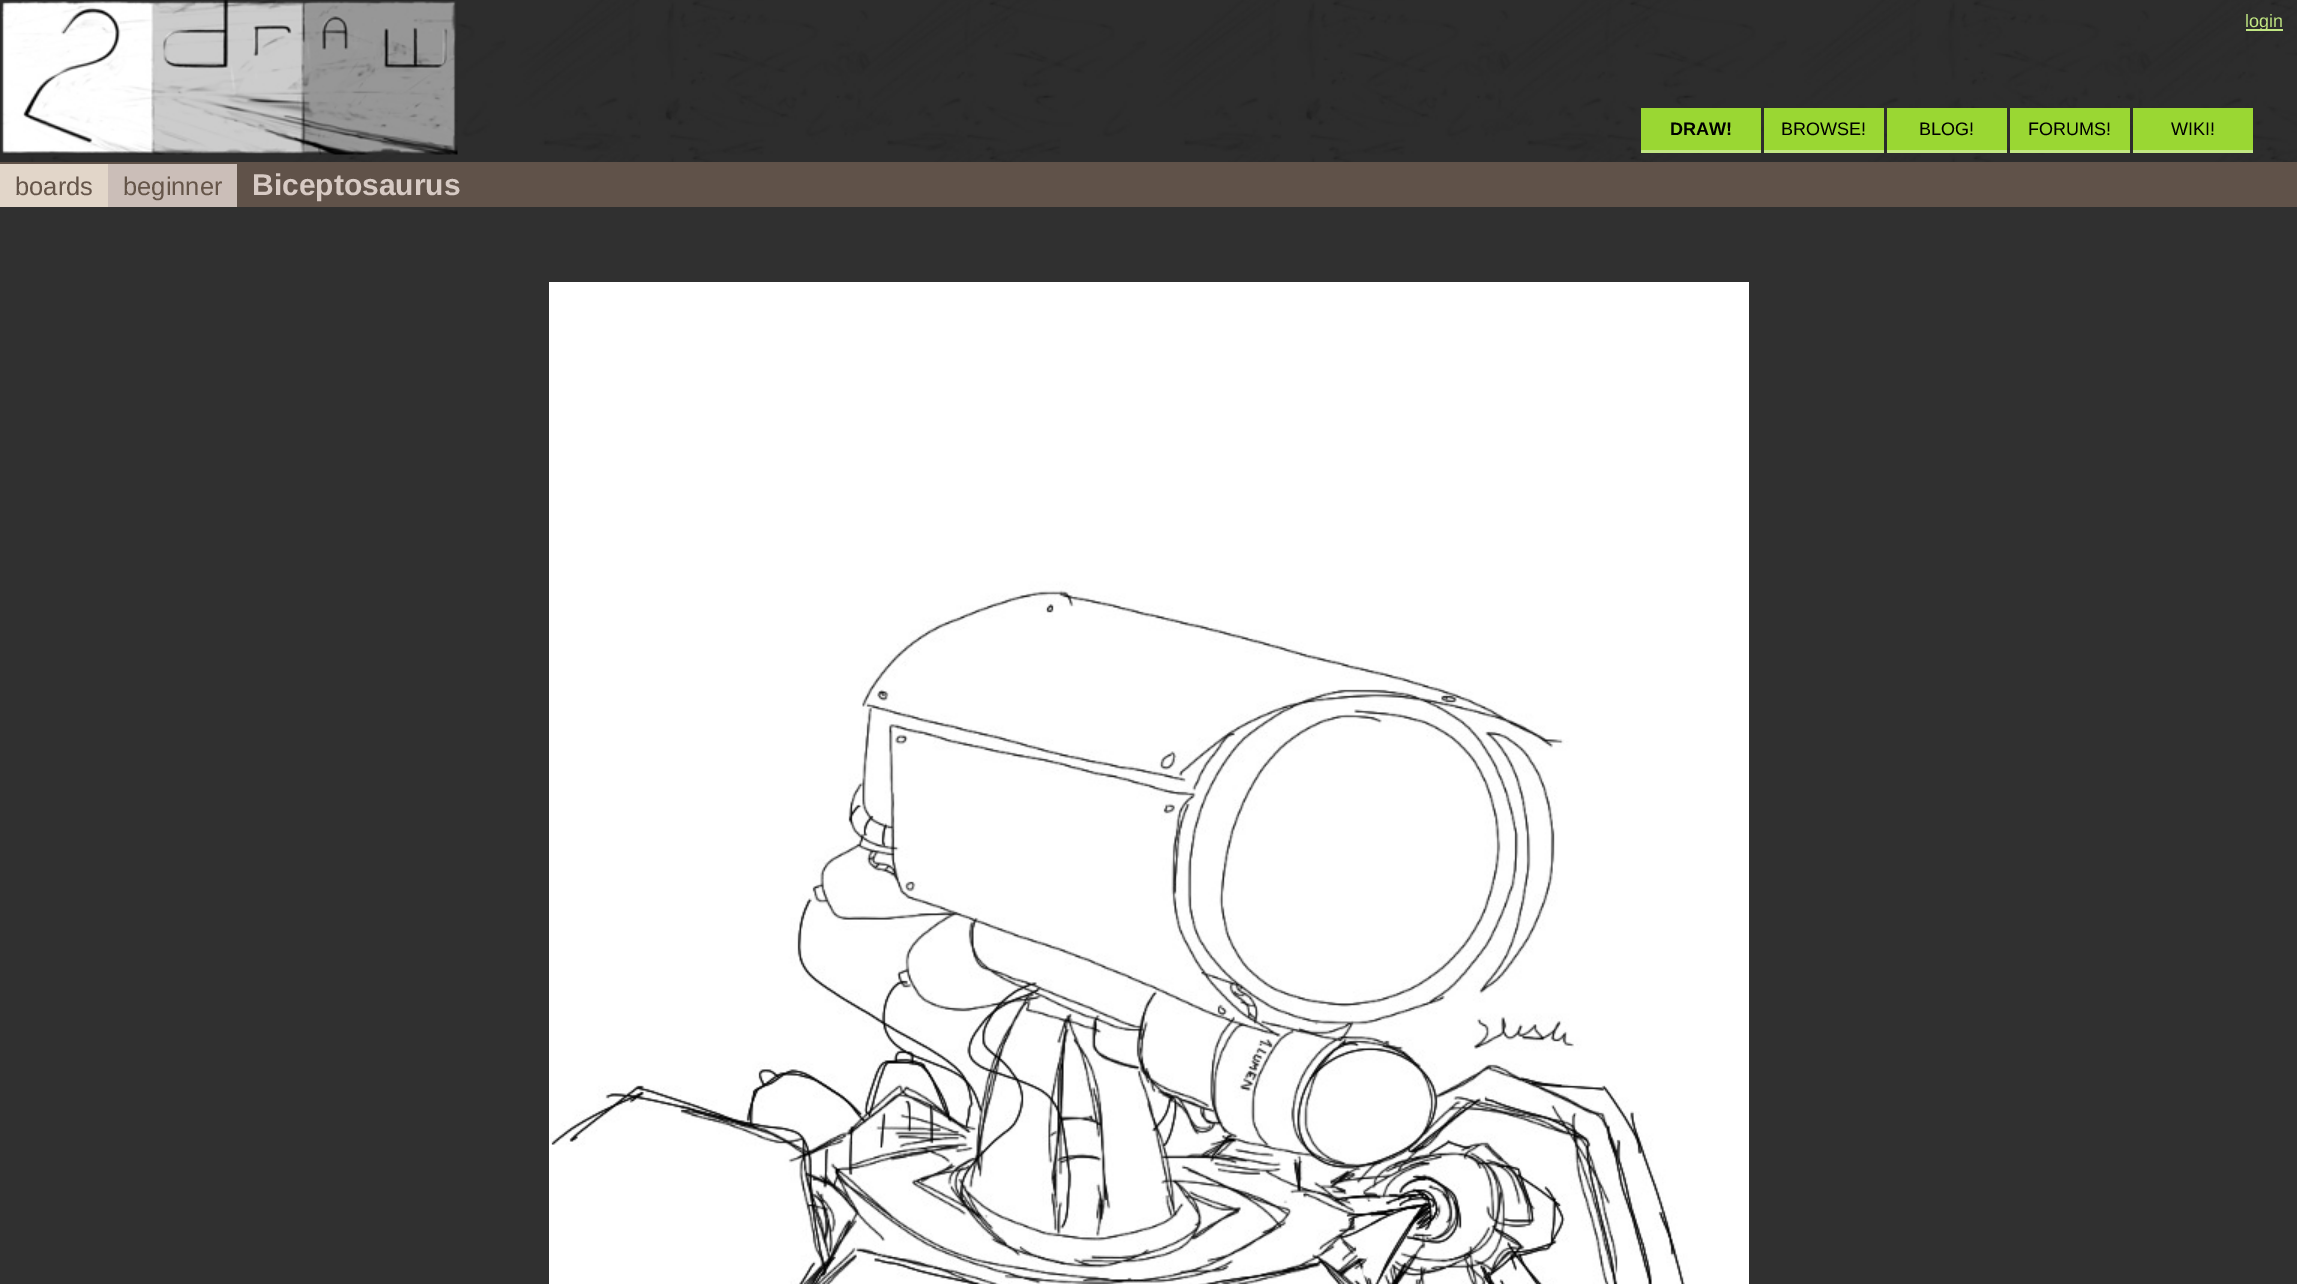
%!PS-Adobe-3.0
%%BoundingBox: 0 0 2297 1284
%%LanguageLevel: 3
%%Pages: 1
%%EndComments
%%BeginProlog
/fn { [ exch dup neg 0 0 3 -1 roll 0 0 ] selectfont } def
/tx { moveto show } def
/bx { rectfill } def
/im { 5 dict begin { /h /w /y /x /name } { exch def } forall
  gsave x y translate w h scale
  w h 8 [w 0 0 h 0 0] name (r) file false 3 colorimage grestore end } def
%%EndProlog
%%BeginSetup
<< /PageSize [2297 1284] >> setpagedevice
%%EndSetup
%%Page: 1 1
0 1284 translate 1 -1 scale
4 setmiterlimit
1 setgray
0 0 2297 1284 bx
(image0.raw) 0 0 2297 162 im
(image1.raw) 0 0 458 155 im
0.757 0.906 0.514 setrgbcolor
2246 29 37 2 bx
/LiberationSans-Regular 18 fn
(login) 2245 27 tx
0.604 0.843 0.2 setrgbcolor
1641 108 120 42 bx
0.757 0.906 0.514 setrgbcolor
1641 150 120 3 bx
/LiberationSans-Bold 18 fn
0 setgray
(DRAW!) 1670 135 tx
0.604 0.843 0.2 setrgbcolor
1764 108 120 42 bx
0.757 0.906 0.514 setrgbcolor
1764 150 120 3 bx
/LiberationSans-Regular 18 fn
0 setgray
(BROWSE!) 1781 135 tx
0.604 0.843 0.2 setrgbcolor
1887 108 120 42 bx
0.757 0.906 0.514 setrgbcolor
1887 150 120 3 bx
0 setgray
(BLOG!) 1919 135 tx
0.604 0.843 0.2 setrgbcolor
2010 108 120 42 bx
0.757 0.906 0.514 setrgbcolor
2010 150 120 3 bx
0 setgray
(FORUMS!) 2028 135 tx
0.604 0.843 0.2 setrgbcolor
2133 108 120 42 bx
0.757 0.906 0.514 setrgbcolor
2133 150 120 3 bx
0 setgray
(WIKI!) 2171 135 tx
0.376 0.322 0.286 setrgbcolor
0 162 2297 45 bx
0.886 0.839 0.788 setrgbcolor
0 164 108 43 bx
/LiberationSans-Regular 25.5 fn
0.396 0.333 0.286 setrgbcolor
(boards) 15 195 tx
0.796 0.745 0.722 setrgbcolor
108 164 129 43 bx
0.396 0.333 0.286 setrgbcolor
(beginner) 123 195 tx
/LiberationSans-Bold 30 fn
0.843 0.792 0.769 setrgbcolor
(Biceptosaurus) 252 195 tx
0.188 setgray
0 207 2297 1077 bx
(image2.raw) 549 282 1200 1002 im
showpage
%%EOF
